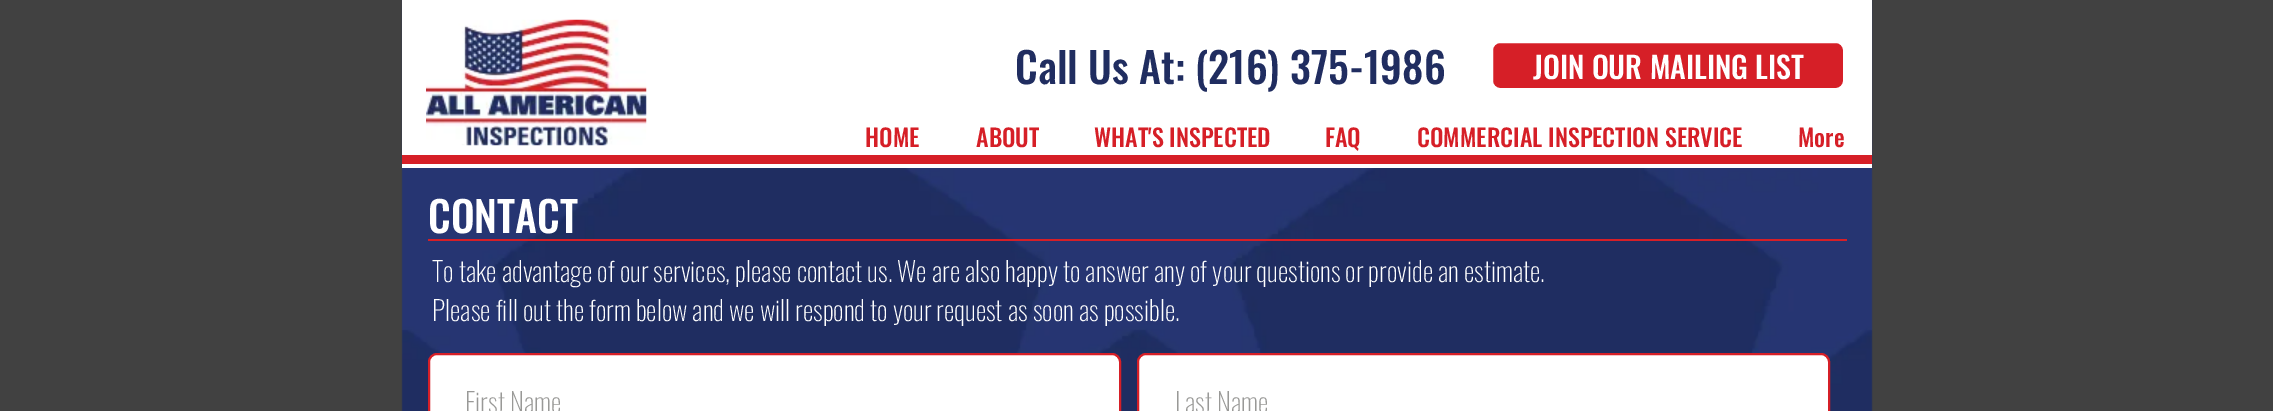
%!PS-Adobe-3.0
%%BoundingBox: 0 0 2273 411
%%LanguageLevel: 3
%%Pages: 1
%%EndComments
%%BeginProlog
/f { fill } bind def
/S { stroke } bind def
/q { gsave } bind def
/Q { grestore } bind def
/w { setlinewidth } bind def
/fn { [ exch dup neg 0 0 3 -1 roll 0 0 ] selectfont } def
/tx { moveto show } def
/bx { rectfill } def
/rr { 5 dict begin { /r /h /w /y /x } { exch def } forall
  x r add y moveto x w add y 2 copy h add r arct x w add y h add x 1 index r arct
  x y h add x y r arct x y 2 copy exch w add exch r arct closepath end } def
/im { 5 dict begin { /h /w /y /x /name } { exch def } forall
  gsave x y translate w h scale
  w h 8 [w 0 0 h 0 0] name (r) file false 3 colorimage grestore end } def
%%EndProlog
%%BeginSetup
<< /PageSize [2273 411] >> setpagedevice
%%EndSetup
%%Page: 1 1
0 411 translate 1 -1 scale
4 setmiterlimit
0.255 setgray
0 0 2273 411 bx
(image0.raw) 401 0 1472 411 im
1 setgray
402 0 1470 168 bx
(image1.raw) 426 19 221 127 im
/Oswald-Medium 42 fn
0.125 0.176 0.376 setrgbcolor
(Call Us At: \(216\) 375-1986) 1015 84 tx
0.839 0.122 0.153 setrgbcolor
1492 42 352 47 8 rr q f Q
1 setgray
2 w
S
/Oswald-Medium 30 fn
(JOIN OUR MAILING LIST) 1533 79 tx
/Oswald-Medium 24 fn
0.839 0.122 0.153 setrgbcolor
(HOME) 865 147 tx
(ABOUT) 976 147 tx
(WHAT'S INSPECTED) 1094 147 tx
(FAQ) 1325 147 tx
(COMMERCIAL INSPECTION SERVICE) 1417 147 tx
(More) 1798 147 tx
402 155 1470 9 bx
/Oswald-Medium 42 fn
1 setgray
(CONTACT) 428 233 tx
0.839 0.122 0.153 setrgbcolor
428 239 1419 2 bx
/Oswald-ExtraLight 27 fn
1 setgray
(To take advantage of our services, please contact us. We are also happy to answer any of your questions or provide an estimate.) 432 282 tx
(Please fill out the form below and we will respond to your request as soon as possible.) 432 321 tx
429 354 691 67 8 rr q f Q
0.839 0.122 0.153 setrgbcolor
S
0.6 0.6 0.592 setrgbcolor
(First Name) 465 413 tx
1 setgray
1138 354 691 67 8 rr q f Q
0.839 0.122 0.153 setrgbcolor
S
0.6 0.6 0.592 setrgbcolor
(Last Name) 1175 413 tx
showpage
%%EOF
